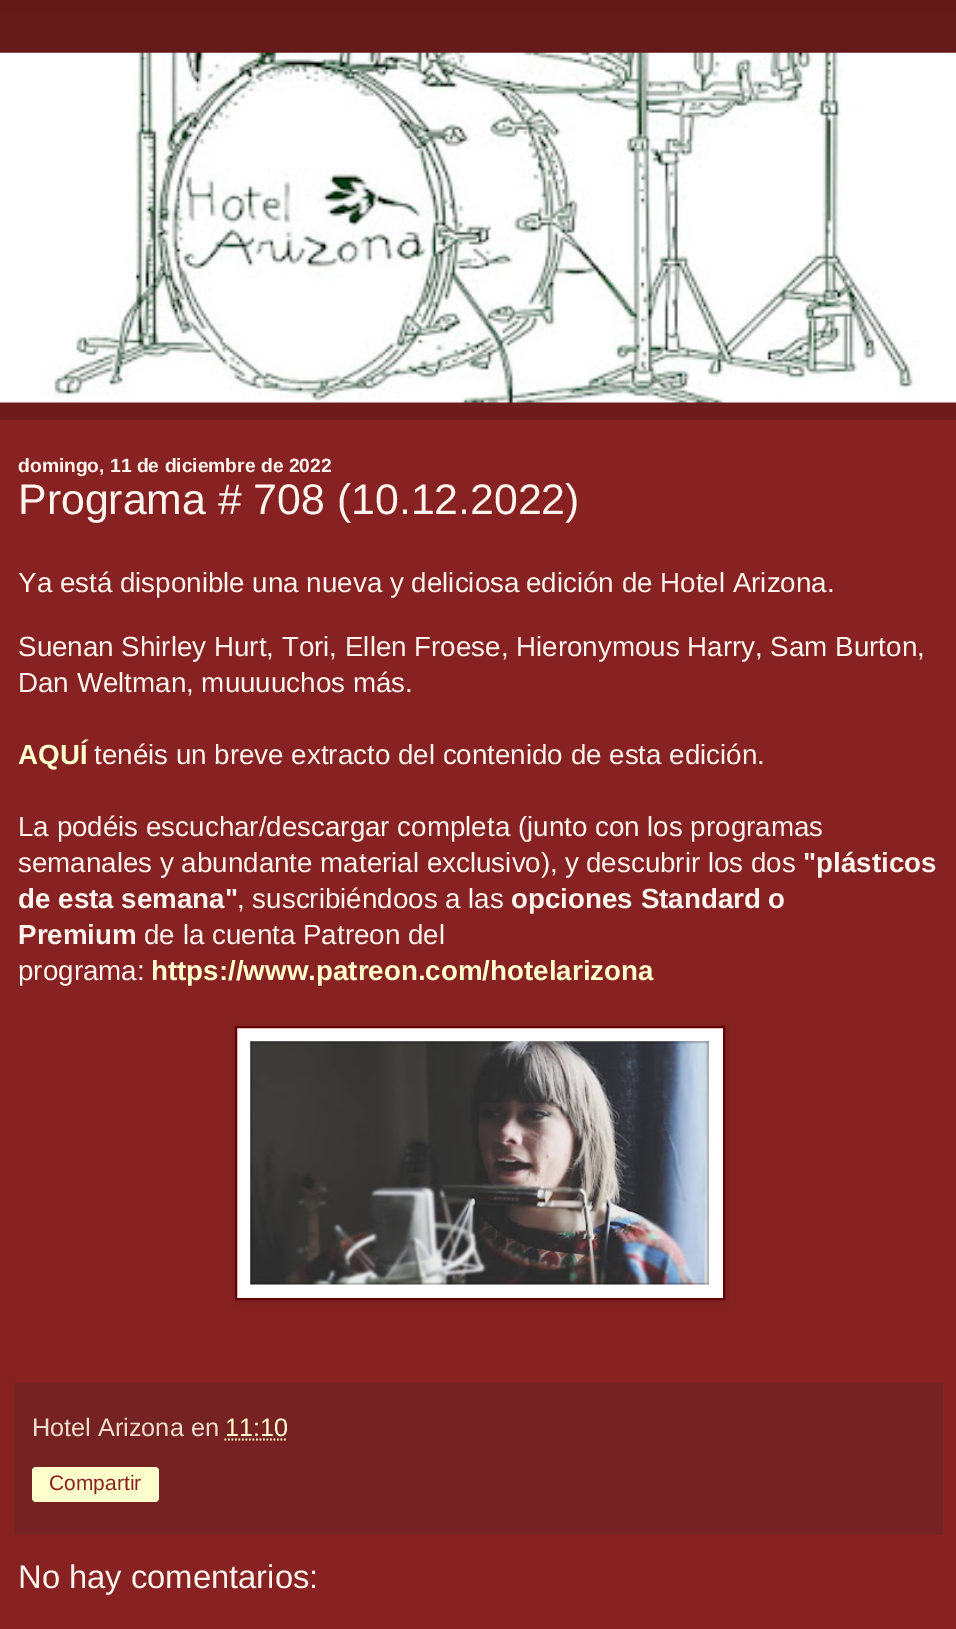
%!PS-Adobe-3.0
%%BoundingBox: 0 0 956 1629
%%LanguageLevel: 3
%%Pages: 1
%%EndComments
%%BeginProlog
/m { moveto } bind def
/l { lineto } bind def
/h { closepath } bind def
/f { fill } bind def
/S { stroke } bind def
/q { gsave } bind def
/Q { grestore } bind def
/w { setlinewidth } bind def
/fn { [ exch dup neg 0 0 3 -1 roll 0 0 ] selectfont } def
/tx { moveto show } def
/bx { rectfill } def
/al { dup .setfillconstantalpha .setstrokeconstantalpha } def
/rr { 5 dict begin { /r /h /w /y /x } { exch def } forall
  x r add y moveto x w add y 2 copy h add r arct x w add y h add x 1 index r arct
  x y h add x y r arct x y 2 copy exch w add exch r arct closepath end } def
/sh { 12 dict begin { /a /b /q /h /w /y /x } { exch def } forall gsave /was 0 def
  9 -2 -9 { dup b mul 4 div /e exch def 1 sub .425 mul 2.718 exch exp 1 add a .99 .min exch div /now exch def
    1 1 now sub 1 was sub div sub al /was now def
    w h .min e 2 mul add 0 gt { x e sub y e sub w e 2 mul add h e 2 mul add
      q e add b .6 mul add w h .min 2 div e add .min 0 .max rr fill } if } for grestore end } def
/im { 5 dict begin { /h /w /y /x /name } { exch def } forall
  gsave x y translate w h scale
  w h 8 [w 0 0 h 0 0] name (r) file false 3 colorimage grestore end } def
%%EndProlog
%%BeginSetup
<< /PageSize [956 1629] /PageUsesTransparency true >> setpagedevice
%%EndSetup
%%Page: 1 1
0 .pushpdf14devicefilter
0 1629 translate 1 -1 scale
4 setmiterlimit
0.533 0.133 0.133 setrgbcolor
0 0 956 1629 bx
(image0.raw) 0 0 956 53 im
0 setgray
0 53 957 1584 0 2.5 0.15 sh
0.533 0.133 0.133 setrgbcolor
0 402 956 1227 bx
(image1.raw) 0 402 956 18 im
(image2.raw) 0 52 956 351 im
/LiberationSans-Bold 19.25 fn
1 0.961 0.933 setrgbcolor
(domingo, 11 de diciembre de 2022) 18 472 tx
/LiberationSans-Regular 42.8 fn
(Programa # 708 \(10.12.2022\)) 18 514 tx
/LiberationSans-Regular 27.75 fn
(Ya está disponible una nueva y deliciosa) 18 592 tx
(edición de Hotel Arizona.) 526 592 tx
(Suenan Shirley Hurt, Tori, Ellen Froese, Hieronymous Harry, Sam Burton,) 18 656 tx
(Dan Weltman, muuuuchos más.) 18 692 tx
/LiberationSans-Bold 27.75 fn
1 1 0.8 setrgbcolor
(AQUÍ) 18 764 tx
/LiberationSans-Regular 27.75 fn
1 0.961 0.933 setrgbcolor
(tenéis un breve extracto del contenido de esta edición.) 94 764 tx
(La podéis escuchar/descargar completa \(junto con los programas) 18 836 tx
(semanales y abundante material exclusivo\), y) 18 872 tx
(descubrir los dos) 586 872 tx
/LiberationSans-Bold 27.75 fn
("plásticos) 803 872 tx
(de esta semana") 18 908 tx
/LiberationSans-Regular 27.75 fn
(, suscribiéndoos a las) 237 908 tx
/LiberationSans-Bold 27.75 fn
(opciones Standard o) 511 908 tx
(Premium) 18 944 tx
/LiberationSans-Regular 27.75 fn
(de la cuenta Patreon del) 144 944 tx
(programa:) 18 980 tx
/LiberationSans-Bold 27.75 fn
1 1 0.8 setrgbcolor
(https://www.patreon.com/hotelarizona) 151 980 tx
0 setgray
236 1027 490 275 0 4.5 0.1 sh
1 setgray
236 1027 m 724 1027 l 724 1299 l 236 1299 l h q f Q
0.4 0 0 setrgbcolor
2 w
S
(image3.raw) 250 1041 459 244 im
0.467 0.133 0.133 setrgbcolor
14 1383 929 152 bx
/LiberationSans-Regular 25.25 fn
0.933 0.867 0.8 setrgbcolor
(Hotel Arizona en) 32 1436 tx
1 1 0.8 setrgbcolor
(11:10) 225 1436 tx
1.8 w
[1.75 1.75] 0 setdash
224.5 1439.5 m 287.5 1439.5 l S
32 1467 127 35 4 rr f
/LiberationSans-Regular 21 fn
0.533 0.133 0.133 setrgbcolor
(Compartir) 49 1490 tx
/LiberationSans-Regular 32.75 fn
1 0.961 0.933 setrgbcolor
(No hay comentarios:) 18 1588 tx
.poppdf14devicefilter showpage
%%EOF
